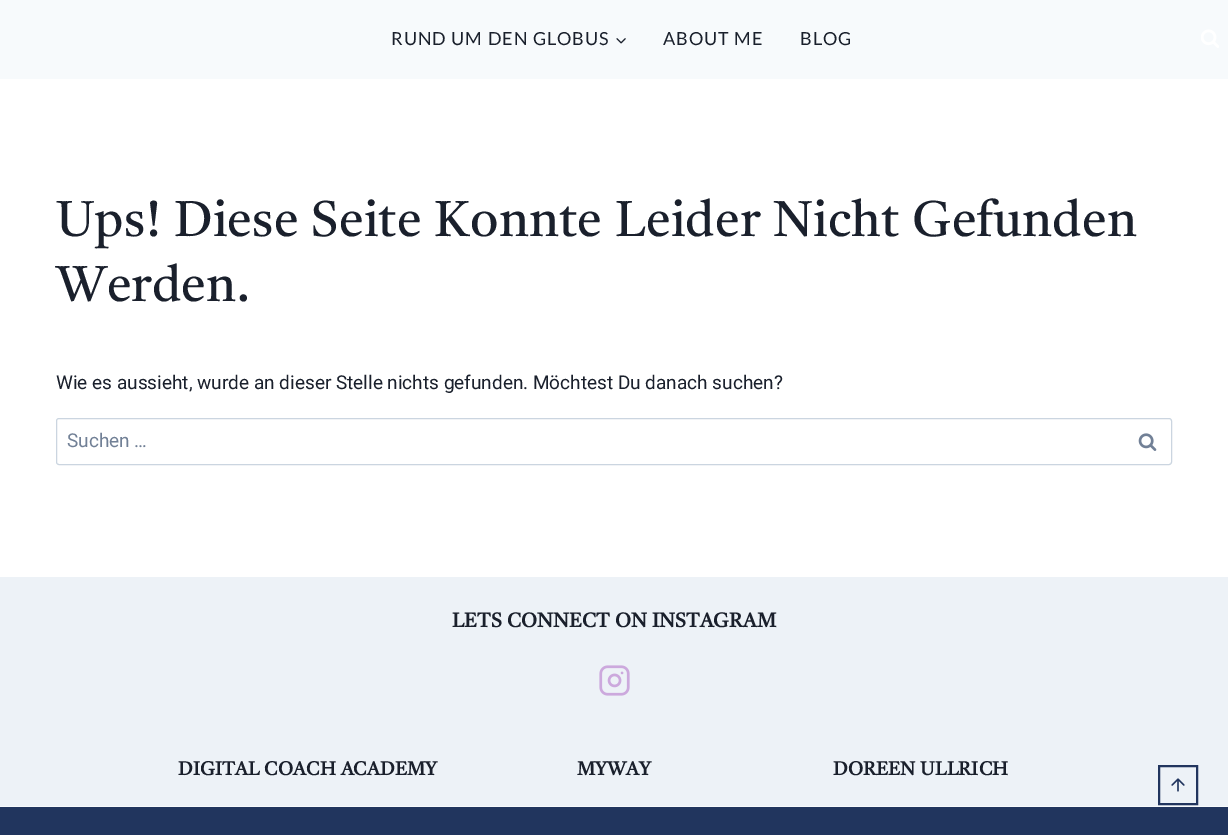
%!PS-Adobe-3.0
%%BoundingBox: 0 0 1228 835
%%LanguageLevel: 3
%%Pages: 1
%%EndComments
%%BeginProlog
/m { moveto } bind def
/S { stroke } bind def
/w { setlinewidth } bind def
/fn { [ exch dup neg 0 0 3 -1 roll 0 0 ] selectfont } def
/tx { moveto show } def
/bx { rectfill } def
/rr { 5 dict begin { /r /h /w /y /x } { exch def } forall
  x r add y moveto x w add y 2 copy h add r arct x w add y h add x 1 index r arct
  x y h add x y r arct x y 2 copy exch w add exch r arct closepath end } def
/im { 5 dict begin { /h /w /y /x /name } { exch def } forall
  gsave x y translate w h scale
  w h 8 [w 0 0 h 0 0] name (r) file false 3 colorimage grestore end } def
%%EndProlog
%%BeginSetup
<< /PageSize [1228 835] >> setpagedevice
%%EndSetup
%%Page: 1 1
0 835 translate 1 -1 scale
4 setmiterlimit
1 setgray
0 0 1228 835 bx
0.969 0.98 0.988 setrgbcolor
0 0 1228 79 bx
/Lato-Regular 18 fn
0.102 0.125 0.173 setrgbcolor
391 45 m 1 0 (RUND UM DEN GLOBUS) ashow
(image0.raw) 616 38 10 6 im
663 45 m 1 0 (ABOUT ME) ashow
800 45 m 1 0 (BLOG) ashow
(image1.raw) 1201 29 18 19 im
/TiroTamil-Regular 50 fn
(Ups! Diese Seite Konnte) 56 236 tx
(Leider Nicht Gefunden) 615 236 tx
(Werden.) 56 301 tx
/Roboto-Regular 19 fn
(Wie es aussieht, wurde an dieser Stelle nichts gefunden. Möchtest Du danach suchen?) 56 389 tx
0.796 0.835 0.878 setrgbcolor
56.5 418.5 1115 46 2.5 rr S
0.443 0.502 0.588 setrgbcolor
(Suchen …) 67 447 tx
(image2.raw) 1138 433 19 18 im
0.929 0.949 0.969 setrgbcolor
0 577 1228 229 bx
/TiroTamil-Bold 20 fn
0.102 0.125 0.173 setrgbcolor
(LETS CONNECT ON INSTAGRAM) 452 627 tx
(image3.raw) 599 665 31 31 im
/TiroTamil-Bold 19 fn
(DIGITAL COACH ACADEMY) 178 775 tx
(MYWAY) 577 775 tx
(DOREEN ULLRICH) 833 775 tx
0.129 0.208 0.369 setrgbcolor
0 807 1228 28 bx
0.969 0.98 0.988 setrgbcolor
0 806 1228 1 bx
0.129 0.208 0.369 setrgbcolor
2 w
1159 766 38 38 rectstroke
(image4.raw) 1171 778 14 14 im
showpage
%%EOF
